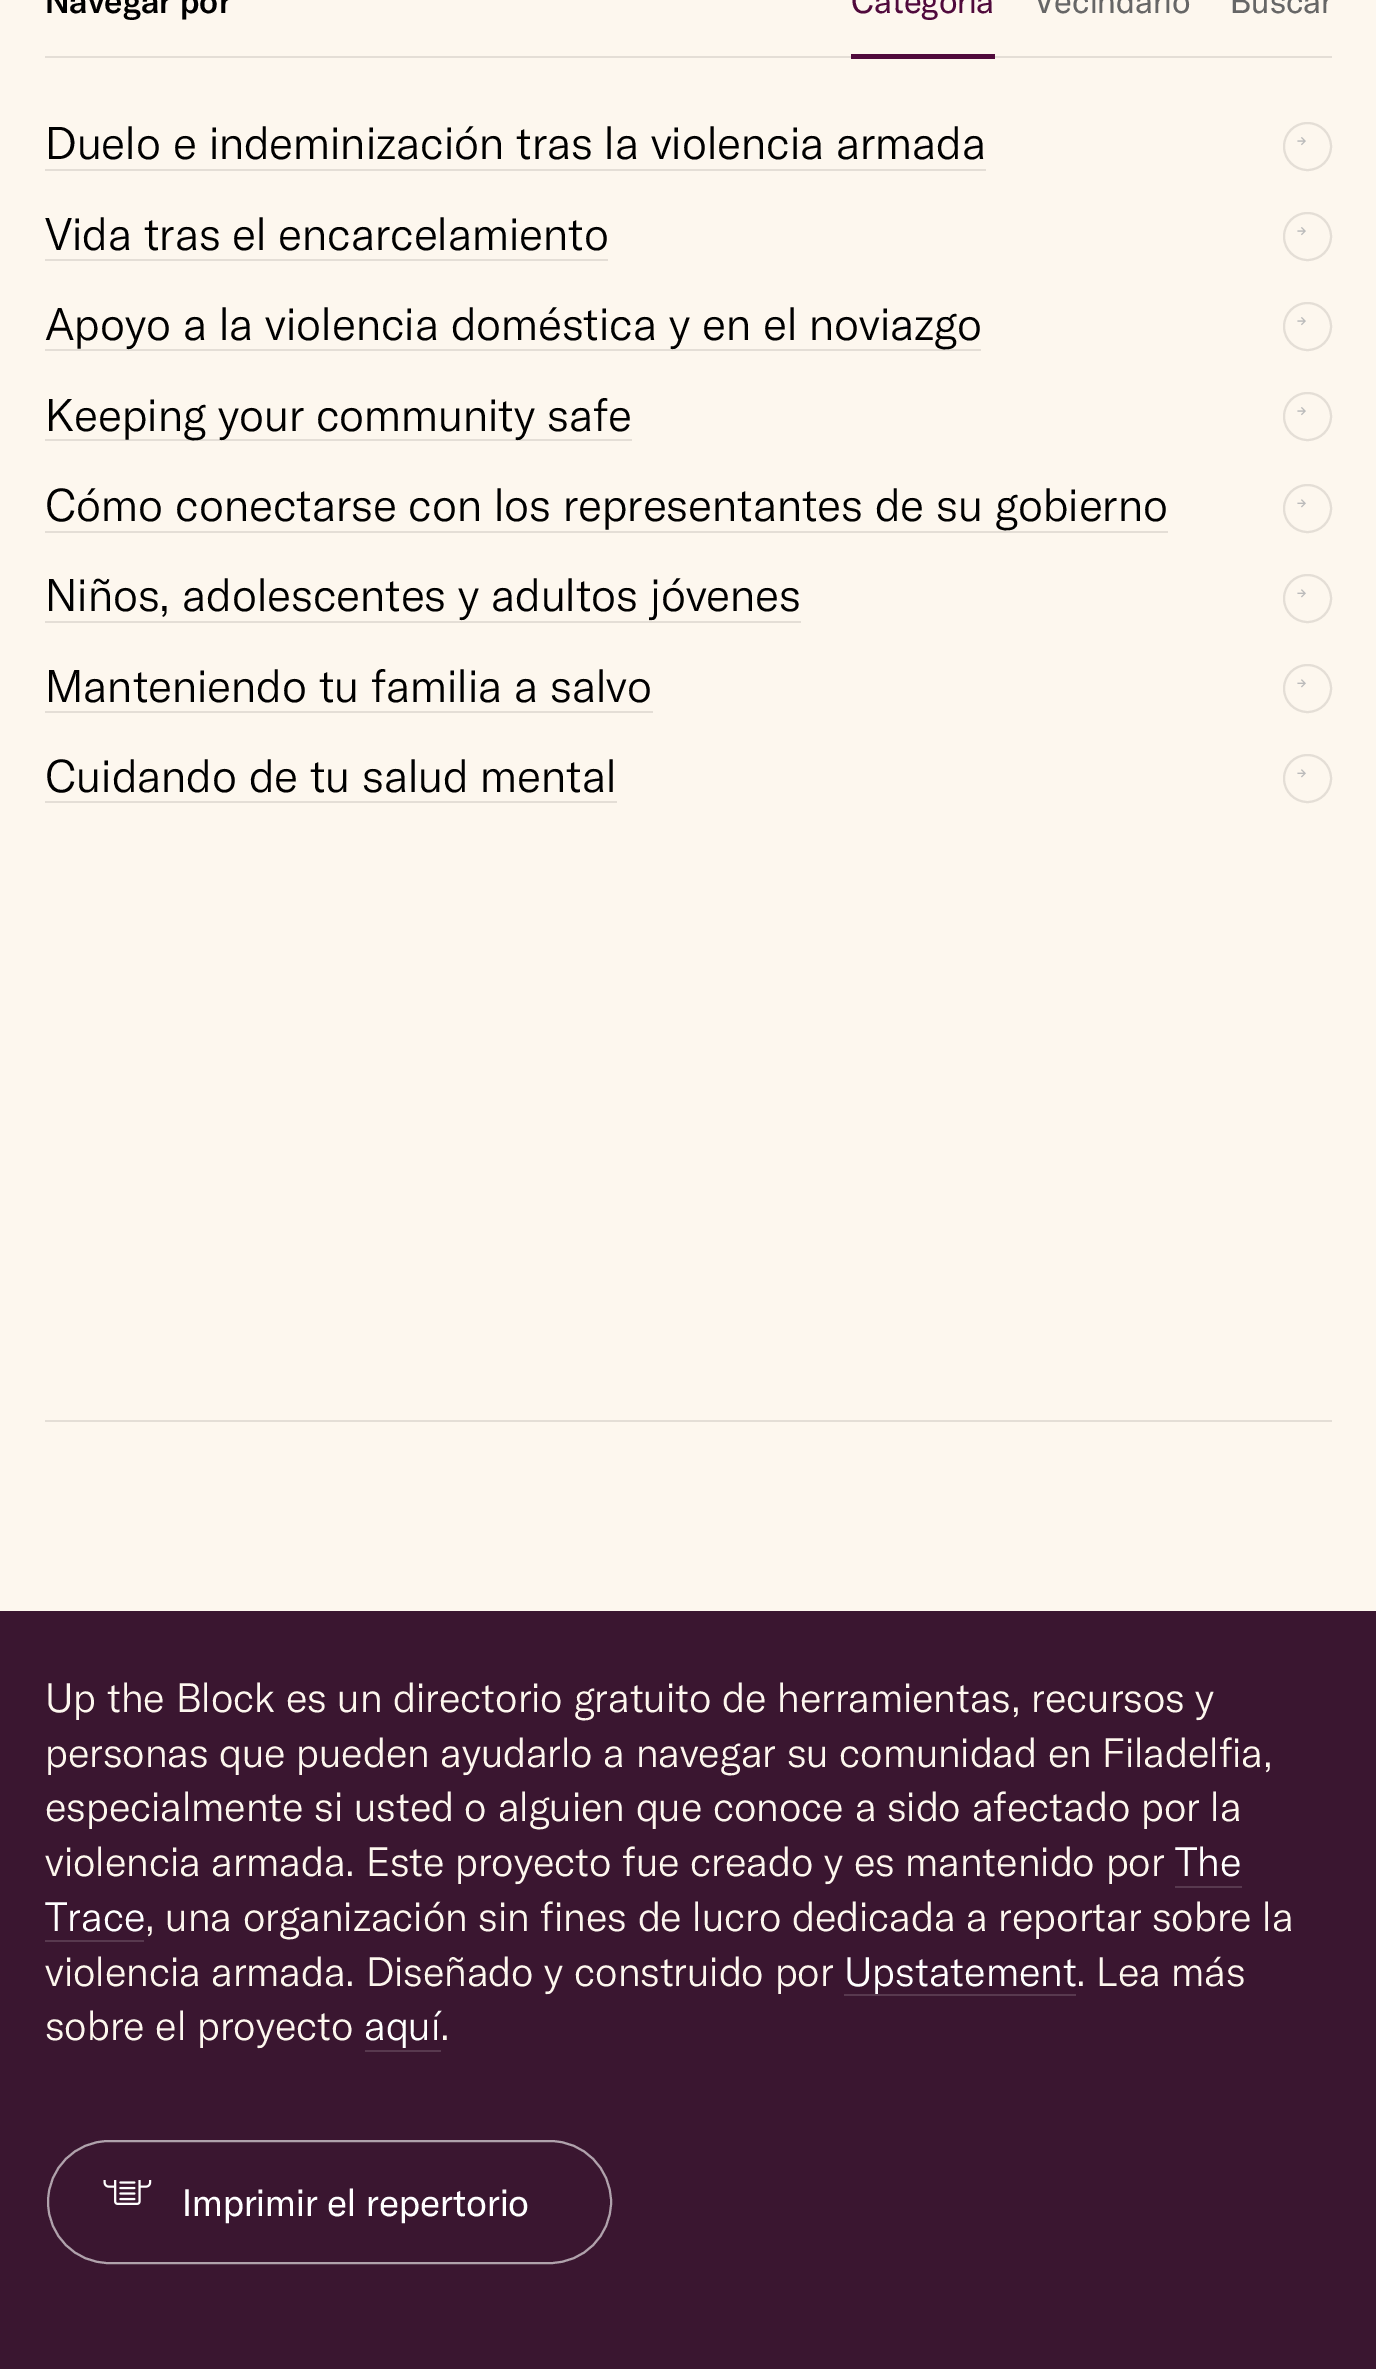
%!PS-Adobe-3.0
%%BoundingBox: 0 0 1376 2369
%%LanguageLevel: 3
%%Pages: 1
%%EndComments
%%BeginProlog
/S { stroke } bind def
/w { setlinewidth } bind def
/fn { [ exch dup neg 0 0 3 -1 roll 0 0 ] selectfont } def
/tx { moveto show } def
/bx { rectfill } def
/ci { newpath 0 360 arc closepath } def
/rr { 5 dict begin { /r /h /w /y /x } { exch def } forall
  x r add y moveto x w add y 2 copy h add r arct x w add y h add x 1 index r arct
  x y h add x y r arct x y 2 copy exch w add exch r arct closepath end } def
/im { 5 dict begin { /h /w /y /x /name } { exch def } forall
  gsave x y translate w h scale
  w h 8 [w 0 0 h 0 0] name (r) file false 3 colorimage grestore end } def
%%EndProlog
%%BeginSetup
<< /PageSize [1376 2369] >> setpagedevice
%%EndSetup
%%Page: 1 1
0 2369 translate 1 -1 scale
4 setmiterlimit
0.992 0.969 0.933 setrgbcolor
0 0 1376 2369 bx
0.894 0.871 0.839 setrgbcolor
45 1420 1287 2 bx
/GTAmerica-Medium 33.5 fn
0 setgray
(Navegar por) 45 13 tx
/GTAmerica-Regular 33.5 fn
0.314 0.039 0.235 setrgbcolor
(Categoría) 851 13 tx
0.894 0.871 0.839 setrgbcolor
45 56 1287 2 bx
0.314 0.039 0.235 setrgbcolor
851 54 144 5 bx
0.4 setgray
(Vecindario) 1034 13 tx
(Buscar) 1230 13 tx
/GTAmerica-Light 45.2 fn
0 setgray
(Duelo e indeminización tras la violencia armada) 45 159 tx
0.894 0.871 0.839 setrgbcolor
45 169 941 2 bx
2 w
1307.5 146.5 23.5 ci S
(image0.raw) 1297 137 9 9 im
0 setgray
(Vida tras el encarcelamiento) 45 250 tx
0.894 0.871 0.839 setrgbcolor
45 259 563 2 bx
1307.5 236.5 23.5 ci S
(image0.raw) 1297 227 9 9 im
45 349 936 2 bx
0 setgray
(Apoyo a la violencia doméstica y en el noviazgo) 45 340 tx
0.894 0.871 0.839 setrgbcolor
1307.5 326.5 23.5 ci S
(image0.raw) 1297 317 9 9 im
45 439 587 2 bx
0 setgray
(Keeping your community safe) 45 431 tx
0.894 0.871 0.839 setrgbcolor
1307.5 416.5 23.5 ci S
(image0.raw) 1297 407 9 9 im
0 setgray
(Cómo conectarse con los representantes de su gobierno) 45 521 tx
0.894 0.871 0.839 setrgbcolor
45 531 1123 2 bx
1307.5 508.5 23.5 ci S
(image1.raw) 1297 499 9 9 im
0 setgray
(Niños, adolescentes y adultos jóvenes) 45 611 tx
0.894 0.871 0.839 setrgbcolor
45 621 756 2 bx
1307.5 598.5 23.5 ci S
(image1.raw) 1297 589 9 9 im
0 setgray
(Manteniendo tu familia a salvo) 45 702 tx
0.894 0.871 0.839 setrgbcolor
45 711 608 2 bx
1307.5 688.5 23.5 ci S
(image1.raw) 1297 679 9 9 im
0 setgray
(Cuidando de tu salud mental) 45 792 tx
0.894 0.871 0.839 setrgbcolor
45 801 572 2 bx
1307.5 778.5 23.5 ci S
(image1.raw) 1297 769 9 9 im
0.227 0.086 0.188 setrgbcolor
0 1611 1376 758 bx
/GTAmerica-Light 40.55 fn
0.992 0.969 0.933 setrgbcolor
(Up the Block es un directorio gratuito de herramientas, recursos y) 45 1712 tx
(personas que pueden ayudarlo a navegar su comunidad en Filadelfia,) 45 1767 tx
(especialmente si usted o alguien que conoce a sido afectado por la) 45 1821 tx
(violencia armada. Este proyecto fue creado y es mantenido por) 45 1876 tx
1 setgray
(The) 1175 1876 tx
0.345 0.224 0.31 setrgbcolor
1175 1886 67 2 bx
1 setgray
(Trace) 45 1931 tx
0.345 0.224 0.31 setrgbcolor
45 1940 99 2 bx
0.992 0.969 0.933 setrgbcolor
(, una organización sin fines de lucro dedicada a reportar sobre la) 145 1931 tx
(violencia armada. Diseñado y construido por) 45 1986 tx
1 setgray
(Upstatement) 844 1986 tx
0.345 0.224 0.31 setrgbcolor
844 1994 232 2 bx
0.992 0.969 0.933 setrgbcolor
(. Lea más) 1076 1986 tx
(sobre el proyecto) 45 2040 tx
1 setgray
(aquí) 364 2040 tx
0.345 0.224 0.31 setrgbcolor
365 2050 76 2 bx
0.992 0.969 0.933 setrgbcolor
(.) 440 2040 tx
0.69 0.635 0.675 setrgbcolor
48 2141 563 122 61 rr S
(image2.raw) 103 2180 49 25 im
/GTAmerica-Regular 37.75 fn
1 setgray
(Imprimir el repertorio) 182 2216 tx
showpage
%%EOF
